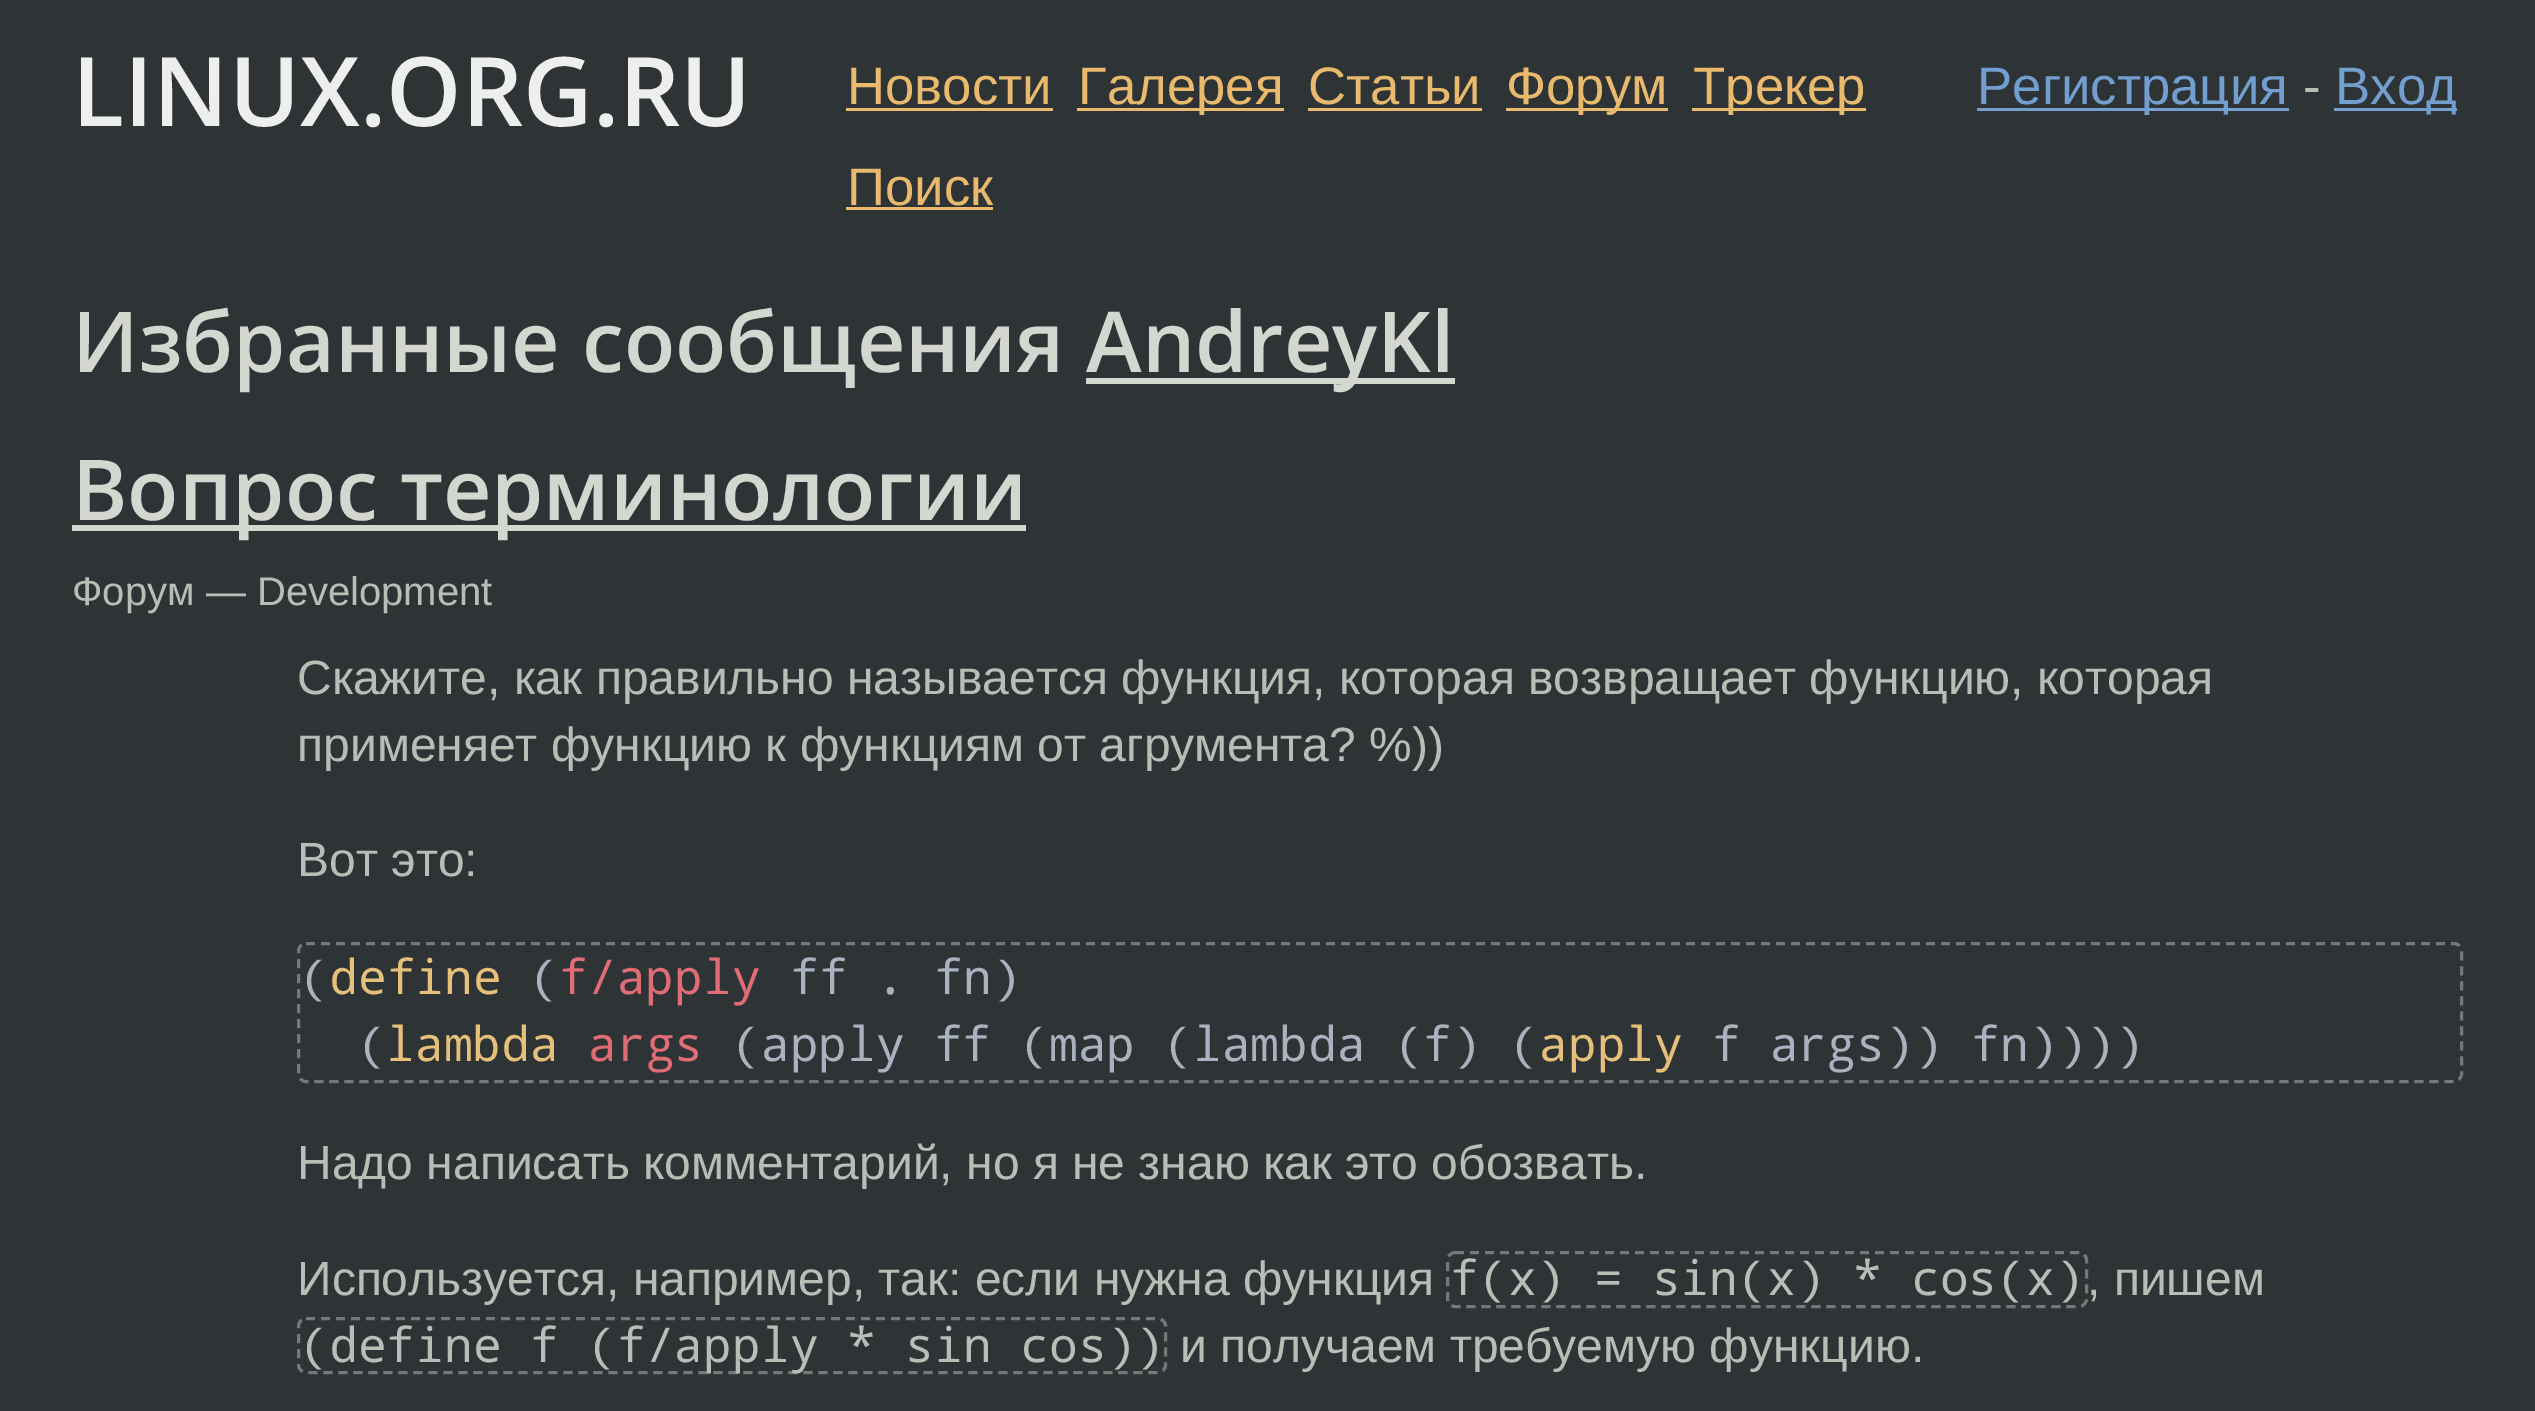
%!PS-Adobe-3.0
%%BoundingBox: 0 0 2535 1411
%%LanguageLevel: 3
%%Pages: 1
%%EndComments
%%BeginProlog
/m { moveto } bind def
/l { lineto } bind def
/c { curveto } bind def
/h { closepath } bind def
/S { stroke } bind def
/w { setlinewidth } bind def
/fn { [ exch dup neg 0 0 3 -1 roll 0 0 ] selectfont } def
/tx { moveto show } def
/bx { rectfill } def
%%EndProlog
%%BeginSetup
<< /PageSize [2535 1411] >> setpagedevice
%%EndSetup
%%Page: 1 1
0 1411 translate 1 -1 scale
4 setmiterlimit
0.18 0.204 0.212 setrgbcolor
0 0 2535 1411 bx
/OpenSans-SemiBold 96 fn
0.933 0.933 0.925 setrgbcolor
(LINUX.ORG.RU) 72 126 tx
/LiberationSans-Regular 52.75 fn
0.914 0.725 0.431 setrgbcolor
(Новости) 847 104 tx
846 108 207 3 bx
1077 108 207 3 bx
(Галерея) 1078 104 tx
(Статьи) 1308 104 tx
1308 108 174 3 bx
1506 108 162 3 bx
(Форум) 1506 104 tx
1692 108 174 3 bx
(Трекер) 1693 104 tx
(Поиск) 847 205 tx
846 207 147 3 bx
0.447 0.624 0.812 setrgbcolor
1977 108 312 3 bx
(Регистрация) 1977 104 tx
0.729 0.741 0.714 setrgbcolor
(-) 2303 104 tx
0.447 0.624 0.812 setrgbcolor
2334 108 123 3 bx
(Вход) 2335 104 tx
/OpenSans-SemiBold 84.1 fn
0.827 0.843 0.812 setrgbcolor
(Избранные сообщения) 72 372 tx
1086 378 369 6 bx
(AndreyKl) 1086 372 tx
72 525 954 6 bx
(Вопрос терминологии) 72 520 tx
/LiberationSans-Regular 40 fn
0.729 0.741 0.714 setrgbcolor
(Форум — Development) 72 605 tx
/LiberationSans-Regular 48 fn
(Скажите, как правильно называется функция, которая возвращает функцию, которая) 297 694 tx
(применяет функцию к функциям от агрумента? %\)\)) 297 761 tx
(Вот это:) 297 876 tx
0.467 setgray
3 w
[9 6] 0 setdash
306 943.5 m 2454 943.5 l 2458 943.5 2461.5 947 2461.5 951 c 2461.5 1074 l 2461.5 1078 2458 1081.5 2454 1081.5 c 306 1081.5 l 302 1081.5 298.5 1078 298.5 1074 c 298.5 951 l 298.5 947 302 943.5 306 943.5 c h S
/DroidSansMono-Regular 48 fn
0.671 0.698 0.749 setrgbcolor
(\() 300 994 tx
0.902 0.753 0.482 setrgbcolor
(define) 329 994 tx
0.671 0.698 0.749 setrgbcolor
(\() 530 994 tx
0.878 0.424 0.459 setrgbcolor
(f/apply) 559 994 tx
0.671 0.698 0.749 setrgbcolor
(ff . fn\)) 790 994 tx
(\() 358 1061 tx
0.902 0.753 0.482 setrgbcolor
(lambda) 386 1061 tx
0.878 0.424 0.459 setrgbcolor
(args) 588 1061 tx
0.671 0.698 0.749 setrgbcolor
(\(apply ff \(map \(lambda \(f\) \() 732 1061 tx
0.902 0.753 0.482 setrgbcolor
(apply) 1539 1061 tx
0.671 0.698 0.749 setrgbcolor
(f args\)\) fn\)\)\)\)) 1712 1061 tx
/LiberationSans-Regular 48 fn
0.729 0.741 0.714 setrgbcolor
(Надо написать комментарий, но я не знаю как это обозвать.) 297 1179 tx
(Используется, например, так: если нужна функция) 297 1295 tx
0.467 setgray
1455 1252.5 m 2079 1252.5 l 2083 1252.5 2086.5 1256 2086.5 1260 c 2086.5 1299 l 2086.5 1303 2083 1306.5 2079 1306.5 c 1455 1306.5 l 1451 1306.5 1447.5 1303 1447.5 1299 c 1447.5 1260 l 1447.5 1256 1451 1252.5 1455 1252.5 c h S
/DroidSansMono-Regular 48 fn
0.729 0.741 0.714 setrgbcolor
(f\(x\) = sin\(x\) * cos\(x\)) 1450 1295 tx
/LiberationSans-Regular 48 fn
(, пишем) 2087 1295 tx
0.467 setgray
306 1318.5 m 1158 1318.5 l 1162 1318.5 1165.5 1322 1165.5 1326 c 1165.5 1365 l 1165.5 1369 1162 1372.5 1158 1372.5 c 306 1372.5 l 302 1372.5 298.5 1369 298.5 1365 c 298.5 1326 l 298.5 1322 302 1318.5 306 1318.5 c h S
/DroidSansMono-Regular 48 fn
0.729 0.741 0.714 setrgbcolor
(\(define f \(f/apply * sin cos\)\)) 300 1362 tx
/LiberationSans-Regular 48 fn
(и получаем требуемую функцию.) 1180 1362 tx
showpage
%%EOF
